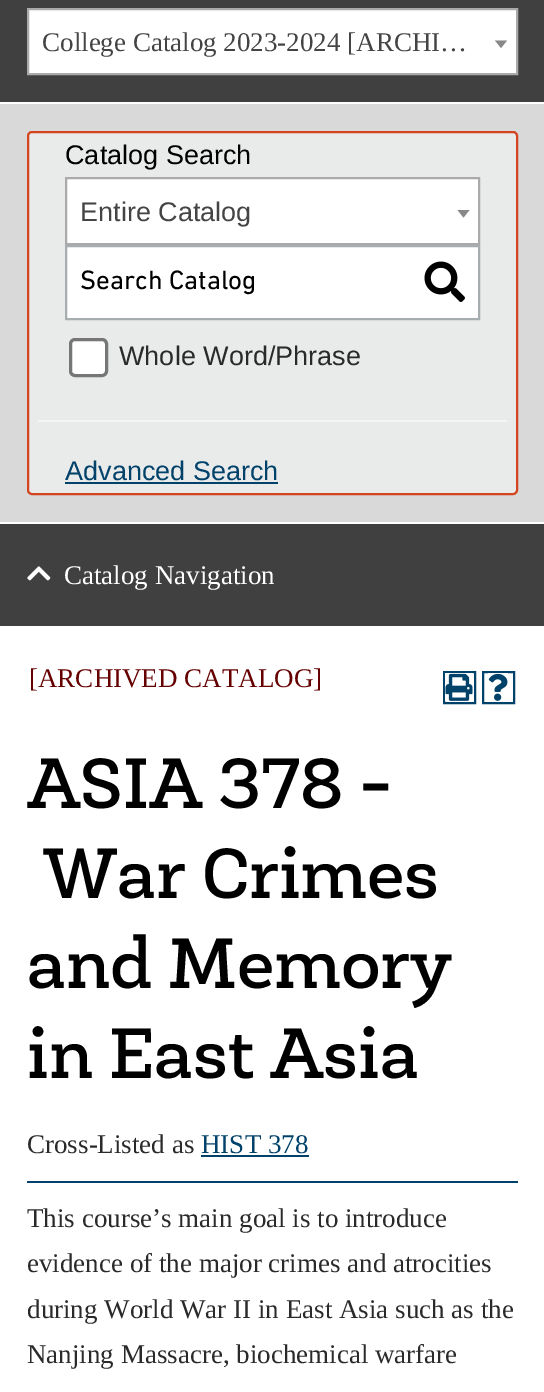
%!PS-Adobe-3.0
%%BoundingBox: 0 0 544 1392
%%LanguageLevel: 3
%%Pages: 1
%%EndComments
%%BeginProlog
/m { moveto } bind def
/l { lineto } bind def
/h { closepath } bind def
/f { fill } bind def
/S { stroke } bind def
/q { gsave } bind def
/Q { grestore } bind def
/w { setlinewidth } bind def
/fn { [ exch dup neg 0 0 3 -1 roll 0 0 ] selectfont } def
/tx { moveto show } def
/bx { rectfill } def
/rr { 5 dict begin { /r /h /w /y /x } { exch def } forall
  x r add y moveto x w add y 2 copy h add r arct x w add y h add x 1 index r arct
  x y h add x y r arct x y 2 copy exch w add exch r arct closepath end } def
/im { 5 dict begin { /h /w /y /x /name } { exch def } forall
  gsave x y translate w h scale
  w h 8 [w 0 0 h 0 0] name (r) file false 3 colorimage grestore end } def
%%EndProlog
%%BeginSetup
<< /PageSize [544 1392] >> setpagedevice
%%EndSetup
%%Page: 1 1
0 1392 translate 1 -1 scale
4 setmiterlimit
1 setgray
0 0 544 1392 bx
0.251 setgray
0 0 544 102 bx
1 setgray
28 9 m 517 9 l 517 74 l 28 74 l h q f Q
0.667 setgray
2 w
S
/LiberationSerif-Regular 27 fn
0.267 setgray
(College Catalog 2023-2024 [ARCHI…) 42 51 tx
0.533 setgray
495 40.5 m 507 40.5 l 501 48 l h f
0.851 setgray
0 104 544 418 bx
0.914 0.922 0.922 setrgbcolor
28 132 489 362 4 rr q f Q
0.831 0.267 0.125 setrgbcolor
S
/LiberationSans-Regular 27 fn
0 setgray
(Catalog Search) 65 164 tx
1 setgray
66 178 m 479 178 l 479 244 l 66 244 l h q f Q
0.667 setgray
S
0.267 setgray
(Entire Catalog) 80 221 tx
0.533 setgray
457.5 210 m 469.5 210 l 463.5 217.5 l h f
1 setgray
66 246 m 479 246 l 479 319 l 66 319 l h q f Q
0.647 0.678 0.686 setrgbcolor
S
/DINNext-Regular 27 fn
0 setgray
(Search Catalog) 80 289 tx
(image0.raw) 424 261 41 41 im
1 setgray
70.5 339.5 36 36 4.5 rr q f Q
0.463 setgray
3 w
S
/LiberationSans-Regular 27 fn
0.165 setgray
(Whole Word/Phrase) 119 365 tx
0.957 0.961 0.961 setrgbcolor
38 420 469 2 bx
0.004 0.259 0.416 setrgbcolor
(Advanced Search) 65 480 tx
65 482 213 2 bx
0.251 setgray
0 524 544 102 bx
(image1.raw) 27 566 24 15 im
/LiberationSerif-Regular 27 fn
1 setgray
(Catalog Navigation) 64 584 tx
0.4 0 0 setrgbcolor
([ARCHIVED CATALOG]) 29 687 tx
0.004 0.259 0.416 setrgbcolor
2 w
444 672 31 31 rectstroke
(image2.raw) 445 673 28 28 im
483 672 31 31 rectstroke
(image3.raw) 488 673 20 28 im
/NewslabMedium-Regular 72 fn
0 setgray
(ASIA 378 -) 27 808 tx
(War Crimes) 43 898 tx
(and Memory) 27 988 tx
(in East Asia) 27 1078 tx
/LiberationSerif-Regular 27 fn
0.165 setgray
(Cross-Listed as) 27 1153 tx
0.004 0.259 0.416 setrgbcolor
(HIST 378) 201 1153 tx
201 1155 108 2 bx
27 1181 491 2 bx
0.165 setgray
(This course’s main goal is to introduce) 27 1227 tx
(evidence of the major crimes and atrocities) 27 1272 tx
(during World War II in East Asia such as the) 27 1318 tx
(Nanjing Massacre, biochemical warfare) 27 1363 tx
showpage
%%EOF
